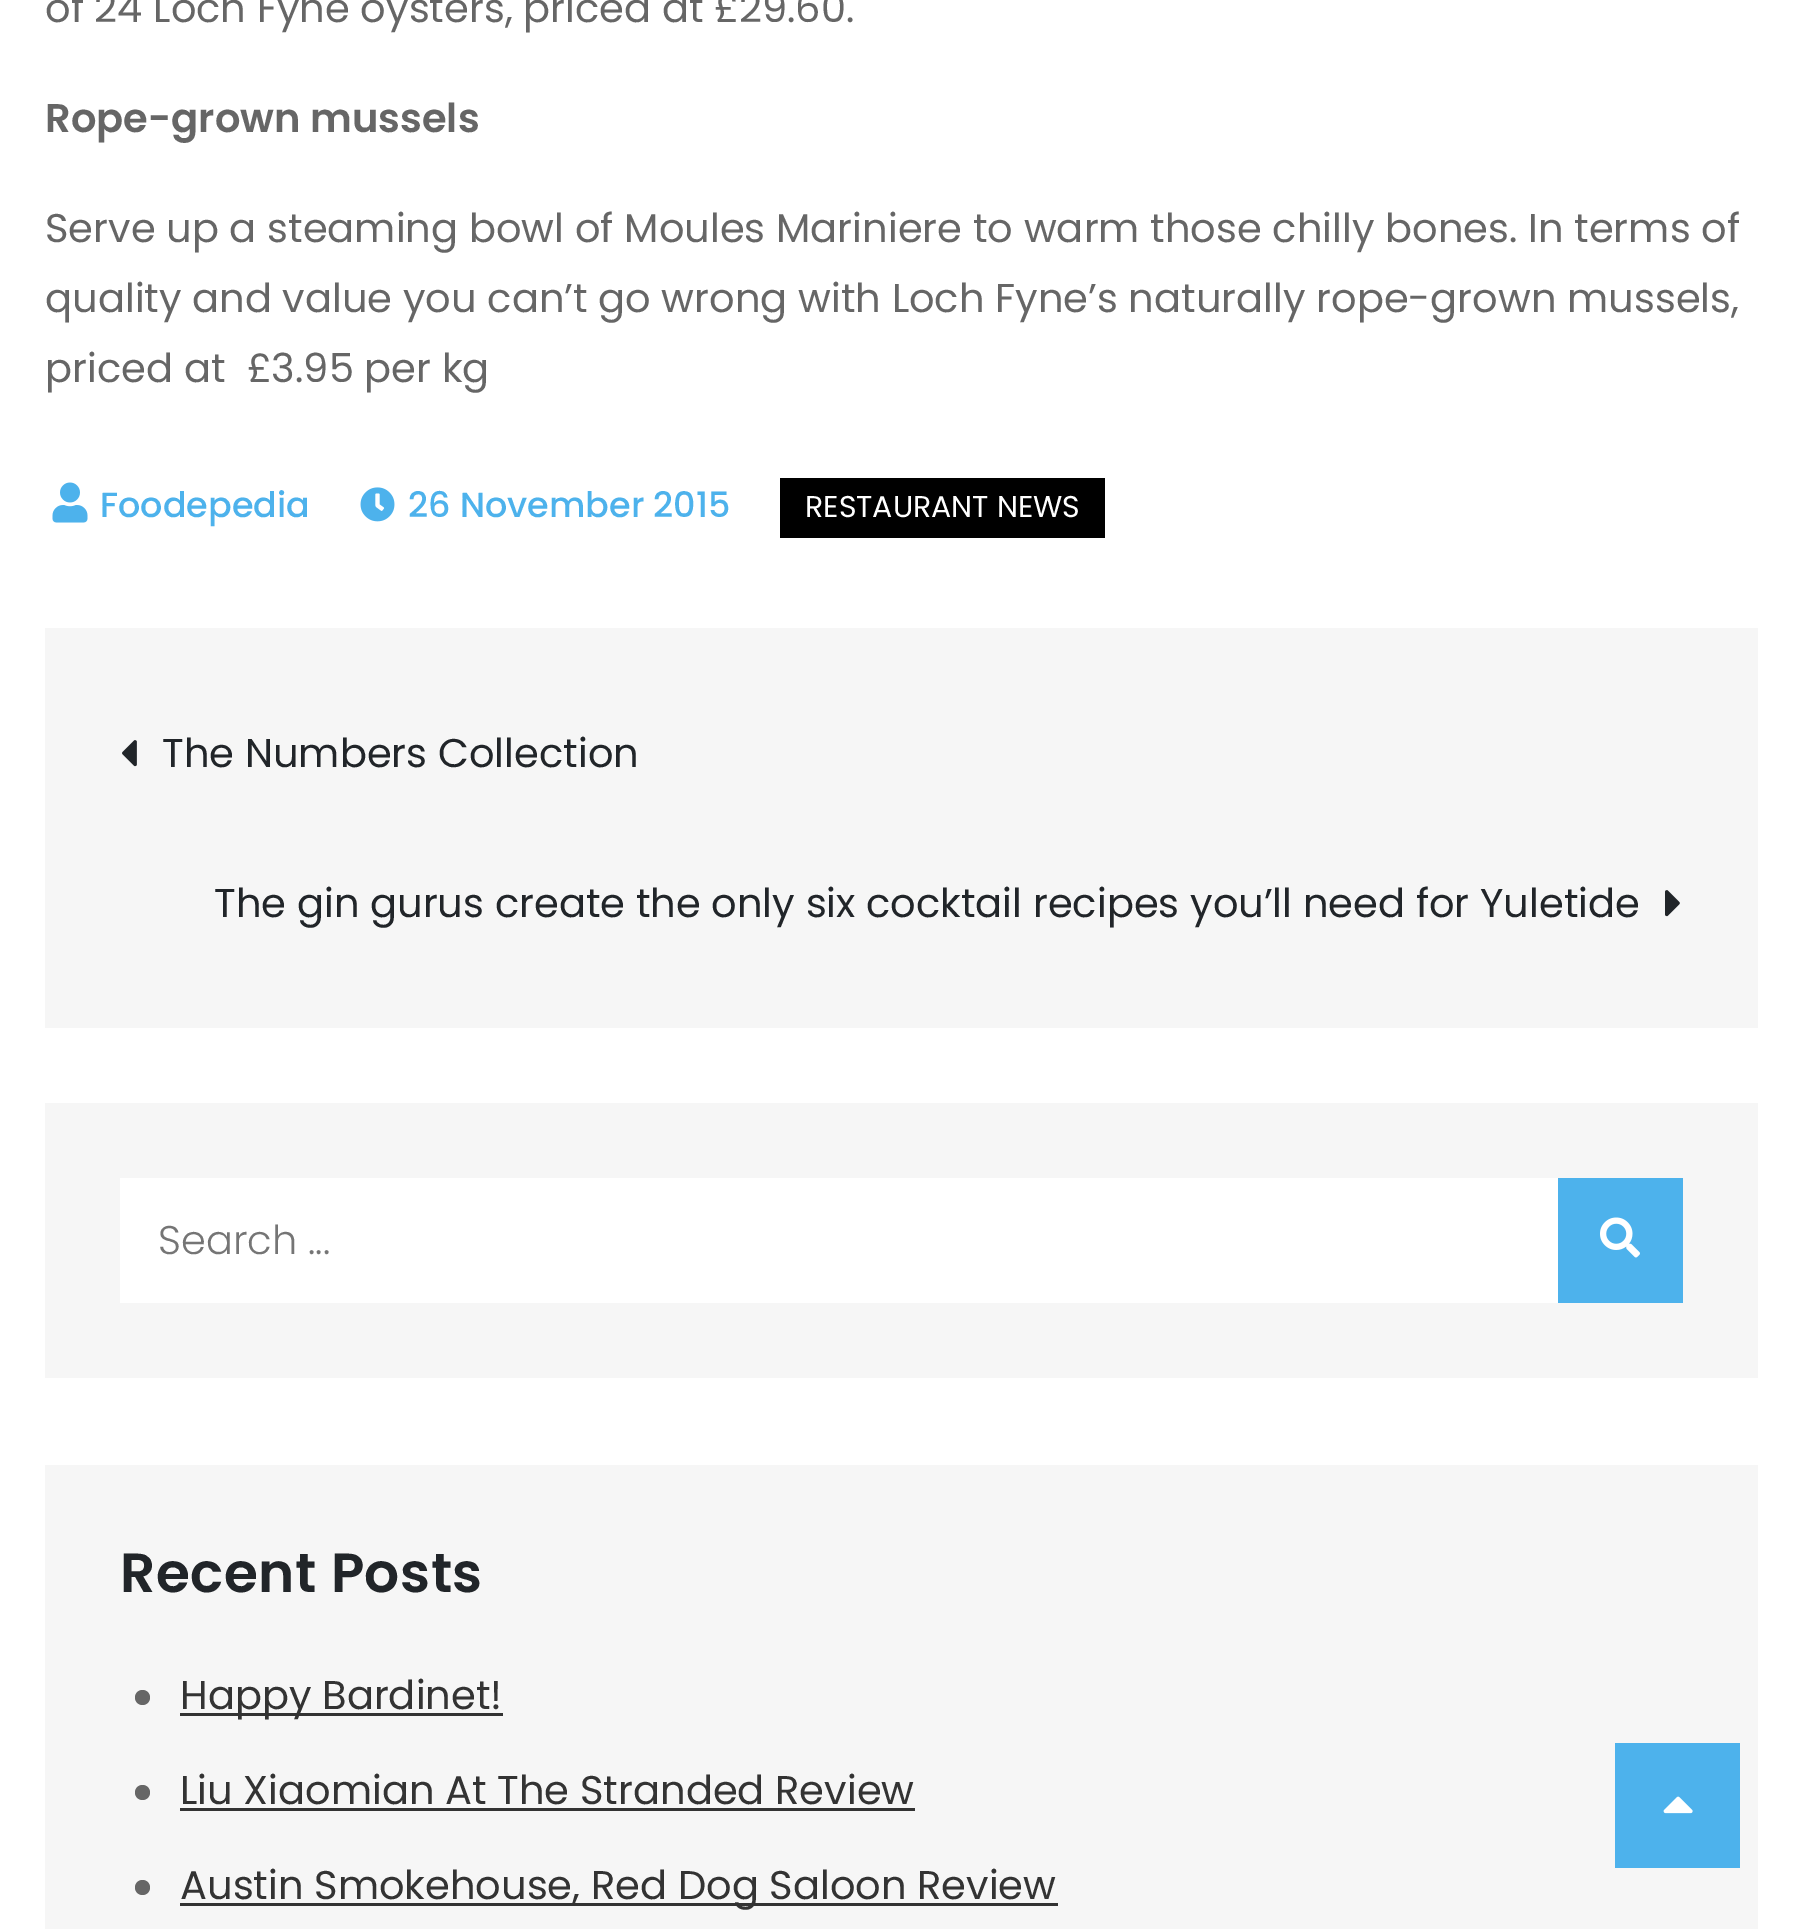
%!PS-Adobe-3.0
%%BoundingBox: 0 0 1801 1929
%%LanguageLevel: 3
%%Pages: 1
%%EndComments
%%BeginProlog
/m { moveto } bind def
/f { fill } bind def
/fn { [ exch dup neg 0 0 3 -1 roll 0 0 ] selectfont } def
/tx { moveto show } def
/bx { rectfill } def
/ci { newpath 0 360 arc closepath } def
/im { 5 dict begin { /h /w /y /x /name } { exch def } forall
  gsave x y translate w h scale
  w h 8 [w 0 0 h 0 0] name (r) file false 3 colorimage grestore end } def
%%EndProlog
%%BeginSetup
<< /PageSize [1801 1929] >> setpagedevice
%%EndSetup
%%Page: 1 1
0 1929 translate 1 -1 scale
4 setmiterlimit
1 setgray
0 0 1801 1929 bx
/Poppins-Regular 40 fn
0.4 setgray
(of 24 Loch Fyne oysters, priced at £29.60.) 45 22 tx
/Poppins-SemiBold 40 fn
(Rope-grown mussels) 45 132 tx
/Poppins-Regular 40 fn
(Serve up a steaming bowl of Moules Mariniere to warm those chilly bones. In terms of) 45 242 tx
(quality and value you can’t go wrong with Loch Fyne’s naturally rope-grown mussels,) 45 312 tx
(priced at  £3.95 per kg) 45 382 tx
(image0.raw) 52 482 36 41 im
/Poppins-Medium 35 fn
0.302 0.698 0.925 setrgbcolor
(Foodepedia) 100 517 tx
(image1.raw) 360 487 35 35 im
(26 November 2015) 408 517 tx
0 setgray
780 478 325 60 bx
/Poppins-Regular 30 fn
1 setgray
(RESTAURANT NEWS) 805 517 tx
0.965 setgray
45 628 1713 400 bx
(image2.raw) 122 740 15 27 im
/Poppins-Regular 40 fn
0.129 0.145 0.161 setrgbcolor
(The Numbers Collection) 162 767 tx
(The gin gurus create the only six cocktail recipes you’ll need for Yuletide) 214 917 tx
(image3.raw) 1665 890 15 27 im
0.965 setgray
45 1103 1713 275 bx
1 setgray
120 1178 1438 125 bx
/Poppins-Light 40 fn
0.459 setgray
(Search ...) 158 1254 tx
0.302 0.698 0.925 setrgbcolor
1558 1178 125 125 bx
(image4.raw) 1600 1217 40 41 im
0.965 setgray
45 1465 1713 464 bx
/Poppins-SemiBold 55 fn
0.129 0.145 0.161 setrgbcolor
120 1592 m 0.5 0 (Recent Posts) ashow
0.4 setgray
142.5 1697.5 7.5 ci f
0.2 setgray
180 1713 323 3 bx
/Poppins-Regular 40 fn
(Happy Bardinet!) 180 1709 tx
0.4 setgray
142.5 1792.5 7.5 ci f
0.2 setgray
(Liu Xiaomian At The Stranded Review) 180 1804 tx
180 1808 735 3 bx
0.4 setgray
142.5 1887.5 7.5 ci f
0.2 setgray
180 1903 878 3 bx
(Austin Smokehouse, Red Dog Saloon Review) 180 1899 tx
0.302 0.698 0.925 setrgbcolor
1615 1743 125 125 bx
(image5.raw) 1663 1796 30 18 im
showpage
%%EOF
